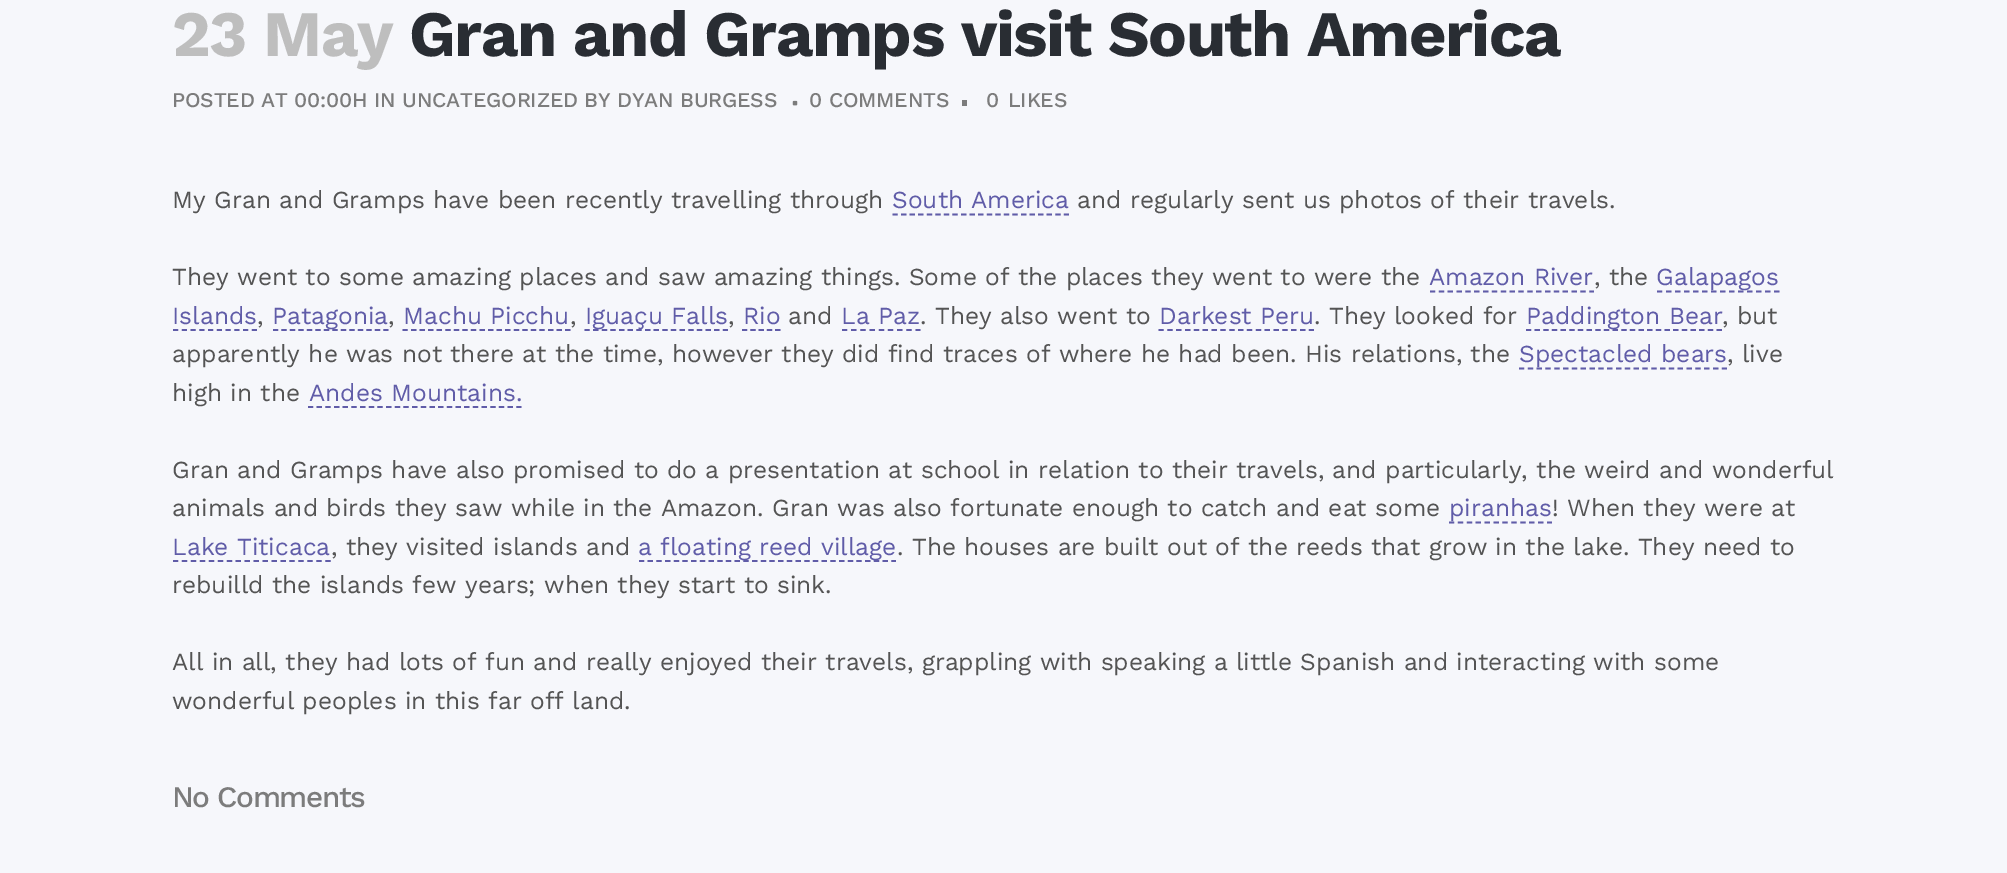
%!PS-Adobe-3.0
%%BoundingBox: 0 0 2007 873
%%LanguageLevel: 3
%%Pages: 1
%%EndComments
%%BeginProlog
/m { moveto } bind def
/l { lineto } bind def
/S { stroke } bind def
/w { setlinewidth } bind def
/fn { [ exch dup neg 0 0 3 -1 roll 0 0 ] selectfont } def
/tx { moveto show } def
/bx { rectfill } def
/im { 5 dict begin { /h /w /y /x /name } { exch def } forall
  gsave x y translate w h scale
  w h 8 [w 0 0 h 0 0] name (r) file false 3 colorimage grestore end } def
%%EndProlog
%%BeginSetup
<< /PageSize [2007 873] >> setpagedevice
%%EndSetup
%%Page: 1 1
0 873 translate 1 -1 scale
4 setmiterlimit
0.965 0.969 0.984 setrgbcolor
0 0 2007 873 bx
/WorkSans-Bold 64.75 fn
0.745 setgray
172 56 m -1.4 0 (23 May) ashow
0.161 0.176 0.2 setrgbcolor
409 56 m -1.4 0 (Gran and Gramps visit South America) ashow
/WorkSans-Medium 21 fn
0.486 setgray
172 107 m -0.2 0 (POSTED AT 00:00H IN UNCATEGORIZED BY DYAN BURGESS) ashow
(image0.raw) 792 100 6 6 im
809 107 m -0.2 0 (0 COMMENTS) ashow
962 100 5 6 bx
986 107 m -0.2 0 (0) ashow
1008 107 m -0.2 0 (LIKES) ashow
/WorkSans-Regular 24.5 fn
0.329 setgray
(My Gran and Gramps have been recently travelling through) 172 208 tx
0.376 0.361 0.659 setrgbcolor
(South America) 892 208 tx
1.8 w
[5.25 3.32] 0 setdash
892.5 214.5 m 1069 214.5 l S
0.329 setgray
(and regularly sent us photos of their travels.) 1077 208 tx
(They went to some amazing places and saw amazing things. Some of the places they went to were the) 172 285 tx
0.376 0.361 0.659 setrgbcolor
(Amazon River) 1429 285 tx
[5.25 3.6] 0 setdash
1430 291.5 m 1594 291.5 l S
0.329 setgray
(, the) 1594 285 tx
0.376 0.361 0.659 setrgbcolor
[5.25 3.76] 0 setdash
1657 291.5 m 1780 291.5 l S
(Galapagos) 1656 285 tx
(Islands) 172 324 tx
[5.25 3.5] 0 setdash
173 330 m 257 330 l S
0.329 setgray
(,) 257 324 tx
0.376 0.361 0.659 setrgbcolor
[5.25 3.24] 0 setdash
273 330 m 388.5 330 l S
(Patagonia) 272 324 tx
0.329 setgray
(,) 388 324 tx
0.376 0.361 0.659 setrgbcolor
(Machu Picchu) 403 324 tx
[5.25 3.31] 0 setdash
402.5 330 m 570.5 330 l S
0.329 setgray
(,) 570 324 tx
0.376 0.361 0.659 setrgbcolor
[5.25 3.4] 0 setdash
584.5 330 m 728 330 l S
(Iguaçu Falls) 585 324 tx
0.329 setgray
(,) 728 324 tx
0.376 0.361 0.659 setrgbcolor
(Rio) 743 324 tx
[5.25 3.06] 0 setdash
742 330 m 780.5 330 l S
0.329 setgray
(and) 788 324 tx
0.376 0.361 0.659 setrgbcolor
(La Paz) 841 324 tx
[5.25 3.94] 0 setdash
842 330 m 920.5 330 l S
0.329 setgray
(. They also went to) 920 324 tx
0.376 0.361 0.659 setrgbcolor
(Darkest Peru) 1159 324 tx
[5.25 3.6] 0 setdash
1158.5 330 m 1314 330 l S
0.329 setgray
(. They looked for) 1314 324 tx
0.376 0.361 0.659 setrgbcolor
[5.25 3.41] 0 setdash
1526 330 m 1722 330 l S
(Paddington Bear) 1526 324 tx
0.329 setgray
(, but) 1722 324 tx
(apparently he was not there at the time, however they did find traces of where he had been. His relations, the) 172 362 tx
0.376 0.361 0.659 setrgbcolor
[5.25 3.57] 0 setdash
1519 368.5 m 1727 368.5 l S
(Spectacled bears) 1519 362 tx
0.329 setgray
(, live) 1727 362 tx
(high in the) 172 401 tx
0.376 0.361 0.659 setrgbcolor
(Andes Mountains.) 309 401 tx
[5.25 3.43] 0 setdash
308 407 m 521.5 407 l S
0.329 setgray
(Gran and Gramps have also promised to do a presentation at school in relation to their travels, and particularly, the weird and wonderful) 172 478 tx
(animals and birds they saw while in the Amazon. Gran was also fortunate enough to catch and eat some) 172 516 tx
0.376 0.361 0.659 setrgbcolor
[5.25 3.66] 0 setdash
1449 522.5 m 1552 522.5 l S
(piranhas) 1449 516 tx
0.329 setgray
(! When they were at) 1552 516 tx
0.376 0.361 0.659 setrgbcolor
(Lake Titicaca) 172 555 tx
[5.25 3.71] 0 setdash
173 561 m 331 561 l S
0.329 setgray
(, they visited islands and) 331 555 tx
0.376 0.361 0.659 setrgbcolor
[5.25 3.45] 0 setdash
639 561 m 896 561 l S
(a floating reed village) 638 555 tx
0.329 setgray
(. The houses are built out of the reeds that grow in the lake. They need to) 897 555 tx
(rebuilld the islands few years; when they start to sink.) 172 593 tx
(All in all, they had lots of fun and really enjoyed their travels, grappling with speaking a little Spanish and interacting with some) 172 670 tx
(wonderful peoples in this far off land.) 172 709 tx
/WorkSans-Medium 29.75 fn
0.486 setgray
172 807 m -1.4 0 (No Comments) ashow
showpage
%%EOF
